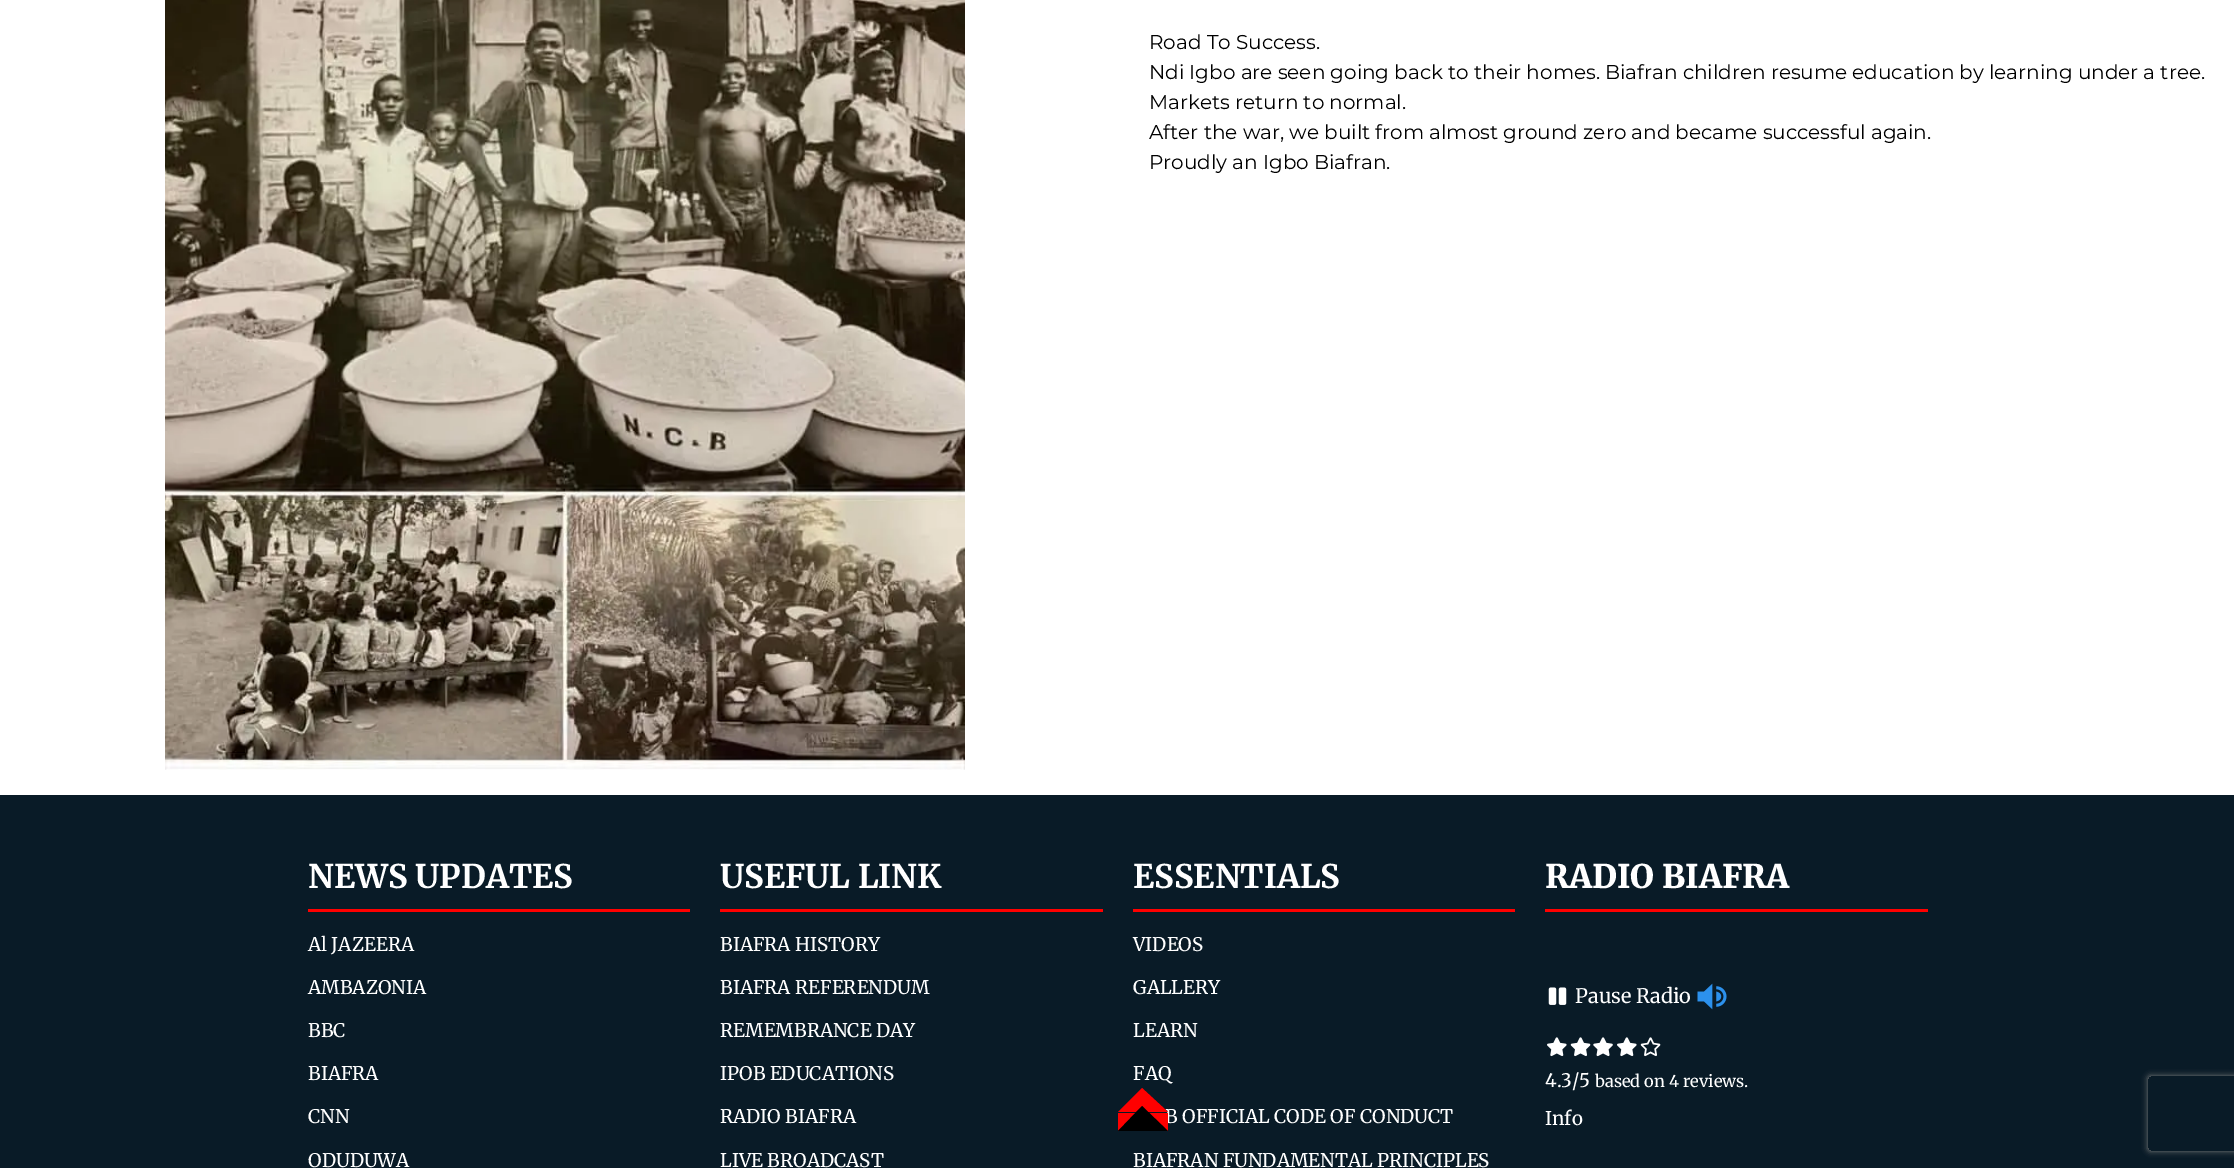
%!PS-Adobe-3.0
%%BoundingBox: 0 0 2234 1168
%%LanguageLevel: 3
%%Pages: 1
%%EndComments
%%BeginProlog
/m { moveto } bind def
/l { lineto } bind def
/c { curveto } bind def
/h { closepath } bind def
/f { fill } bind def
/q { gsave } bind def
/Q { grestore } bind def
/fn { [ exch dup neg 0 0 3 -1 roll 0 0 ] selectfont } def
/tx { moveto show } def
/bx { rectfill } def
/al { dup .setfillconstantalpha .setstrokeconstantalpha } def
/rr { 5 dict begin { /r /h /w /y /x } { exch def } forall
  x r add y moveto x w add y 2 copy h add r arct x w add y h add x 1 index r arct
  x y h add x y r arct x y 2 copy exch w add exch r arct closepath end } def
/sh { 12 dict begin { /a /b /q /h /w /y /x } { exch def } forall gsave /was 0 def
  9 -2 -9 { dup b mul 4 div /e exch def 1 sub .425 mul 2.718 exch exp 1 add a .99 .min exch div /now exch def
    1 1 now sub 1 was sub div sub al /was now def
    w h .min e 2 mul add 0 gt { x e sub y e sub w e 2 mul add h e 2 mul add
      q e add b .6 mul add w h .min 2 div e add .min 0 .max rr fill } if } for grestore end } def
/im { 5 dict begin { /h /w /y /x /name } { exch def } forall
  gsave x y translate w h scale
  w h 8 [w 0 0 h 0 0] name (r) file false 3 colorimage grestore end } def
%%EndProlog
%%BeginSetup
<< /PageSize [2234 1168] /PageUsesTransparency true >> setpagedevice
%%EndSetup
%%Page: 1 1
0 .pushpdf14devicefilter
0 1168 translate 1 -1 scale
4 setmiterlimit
1 setgray
0 0 2234 1168 bx
(image0.raw) 165 0 800 770 im
/Montserrat-Thin 20 fn
0 setgray
(Road To Success.) 1149 49 tx
(Ndi Igbo are seen going back to their homes. Biafran children resume education by learning under a tree.) 1149 79 tx
(Markets return to normal.) 1149 109 tx
(After the war, we built from almost ground zero and became successful again.) 1149 139 tx
(Proudly an Igbo Biafran.) 1149 169 tx
0.035 0.106 0.153 setrgbcolor
0 795 2234 373 bx
1 0 0 setrgbcolor
308 909 382 3 bx
/Merriweather-Light 32.5 fn
1 setgray
(NEWS UPDATES) 308 888 tx
/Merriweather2-Light 18.75 fn
(Al JAZEERA) 308 951 tx
(AMBAZONIA) 308 994 tx
(BBC) 308 1037 tx
(BIAFRA) 308 1080 tx
(CNN) 308 1123 tx
(ODUDUWA) 308 1167 tx
1 0 0 setrgbcolor
720 909 383 3 bx
/Merriweather-Light 32.5 fn
1 setgray
(USEFUL LINK) 720 888 tx
/Merriweather2-Light 18.75 fn
(BIAFRA HISTORY) 720 951 tx
(BIAFRA REFERENDUM) 720 994 tx
(REMEMBRANCE DAY) 720 1037 tx
(IPOB EDUCATIONS) 720 1080 tx
(RADIO BIAFRA) 720 1123 tx
(LIVE BROADCAST) 720 1167 tx
1 0 0 setrgbcolor
1133 909 382 3 bx
/Merriweather-Light 32.5 fn
1 setgray
(ESSENTIALS) 1133 888 tx
/Merriweather2-Light 18.75 fn
(VIDEOS) 1133 951 tx
(GALLERY) 1133 994 tx
(LEARN) 1133 1037 tx
(FAQ) 1133 1080 tx
(B OFFICIAL CODE OF CONDUCT) 1165 1123 tx
(BIAFRAN FUNDAMENTAL PRINCIPLES) 1133 1167 tx
1 0 0 setrgbcolor
1545 909 383 3 bx
/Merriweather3-Light 32.5 fn
1 setgray
(RADIO BIAFRA) 1545 888 tx
(image1.raw) 1548 987 19 18 im
/Merriweather2-Light 20 fn
(Pause Radio) 1575 1003 tx
(image2.raw) 1697 983 30 27 im
(image3.raw) 1547 1037 20 20 im
(image4.raw) 1570 1037 21 20 im
(image5.raw) 1593 1037 20 20 im
(image3.raw) 1617 1037 20 20 im
(image6.raw) 1640 1037 21 20 im
/Merriweather2-Light 18.75 fn
(4.3/5) 1545 1087 tx
/Merriweather2-Light 16.5 fn
(based on 4 reviews.) 1595 1087 tx
/Merriweather2-Light 18.75 fn
(Info) 1545 1125 tx
q
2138 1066 m 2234 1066 l 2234 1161 l 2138 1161 l h 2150.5 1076 m 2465.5 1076 l 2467 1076 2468 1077 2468 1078.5 c 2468 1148.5 l 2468 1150 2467 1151 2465.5 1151 c 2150.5 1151 l 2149 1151 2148 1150 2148 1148.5 c 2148 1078.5 l 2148 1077 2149 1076 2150.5 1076 c h eoclip newpath
0.502 setgray
2148 1076 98 75 2.5 3 1 sh
Q
1 0 0 setrgbcolor
1118 1113 50 18 bx
1168 1112 m 1118 1112 l 1142 1088 l h f
0 setgray
1168 1131 m 1118 1131 l 1142 1106 l h f
.poppdf14devicefilter showpage
%%EOF
